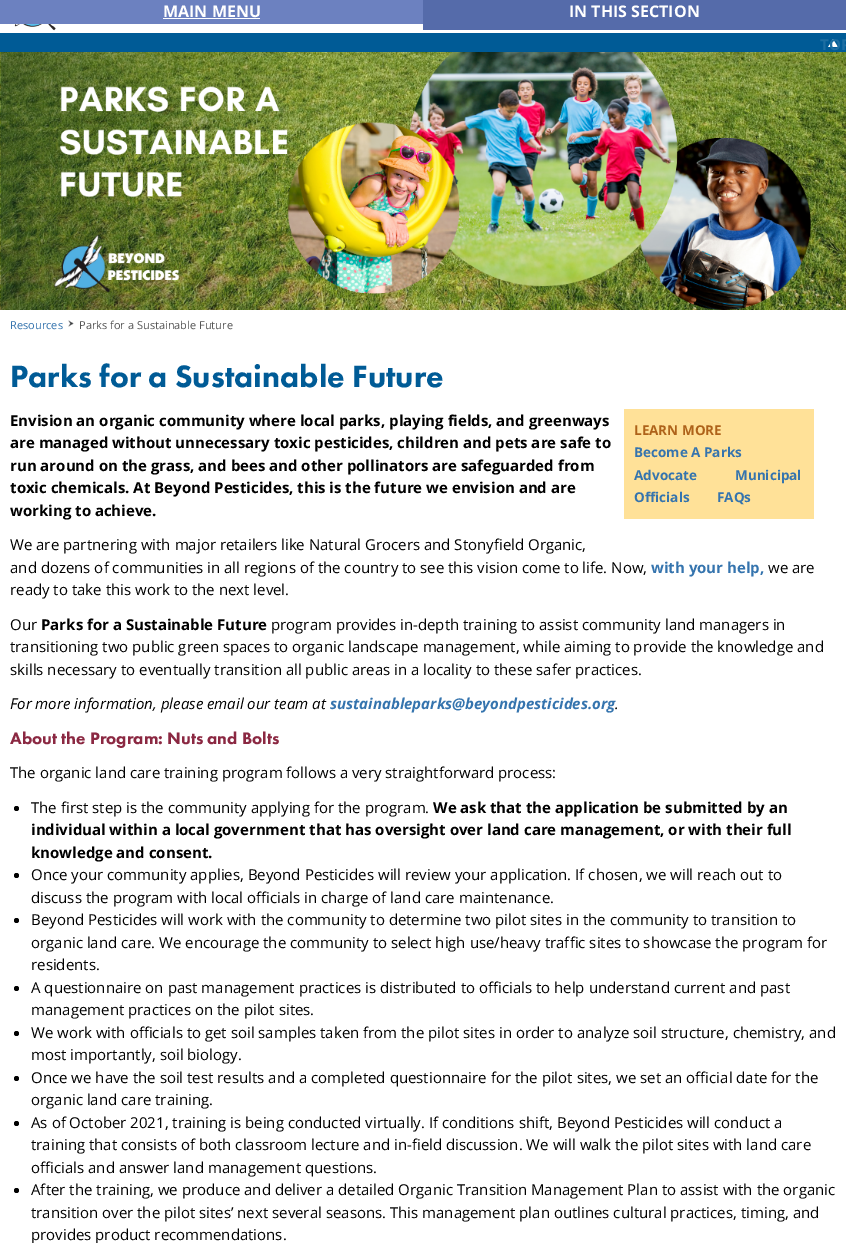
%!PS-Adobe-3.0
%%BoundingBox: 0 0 846 1243
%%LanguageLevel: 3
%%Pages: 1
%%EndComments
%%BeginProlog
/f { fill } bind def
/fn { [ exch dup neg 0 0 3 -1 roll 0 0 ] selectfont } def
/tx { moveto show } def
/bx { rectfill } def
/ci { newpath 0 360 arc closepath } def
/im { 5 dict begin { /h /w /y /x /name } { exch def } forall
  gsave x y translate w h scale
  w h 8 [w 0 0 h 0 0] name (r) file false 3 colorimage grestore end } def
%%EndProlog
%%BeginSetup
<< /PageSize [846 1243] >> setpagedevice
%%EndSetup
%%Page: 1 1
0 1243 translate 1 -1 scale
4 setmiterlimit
1 setgray
0 0 846 1243 bx
0.424 0.506 0.753 setrgbcolor
0 0 423 24 bx
/OpenSans-Bold 16 fn
1 setgray
(MAIN MENU) 163 17 tx
163 18 97 1 bx
0.333 0.42 0.667 setrgbcolor
423 0 423 30 bx
1 setgray
(IN THIS SECTION) 569 17 tx
(image0.raw) 5 24 168 7 im
0 0.357 0.588 setrgbcolor
0 33 846 19 bx
(image1.raw) 828 39 10 8 im
/OpenSans-Bold 15 fn
0.114 0.431 0.635 setrgbcolor
(TOP) 820 50 tx
(image2.raw) 0 52 846 258 im
/OpenSans-Regular 11 fn
0.208 0.455 0.682 setrgbcolor
(Resources) 10 329 tx
(image3.raw) 68 320 6 7 im
0.333 setgray
(Parks for a Sustainable Future) 79 329 tx
/FuturaPT-Black 32 fn
0 0.357 0.588 setrgbcolor
(Parks for a Sustainable Future) 10 387 tx
/OpenSans-Bold 15 fn
0 setgray
(Envision an organic community where local parks, playing fields, and greenways) 10 426 tx
(are managed without unnecessary toxic pesticides, children and pets are safe to) 10 448 tx
(run around on the grass, and bees and other pollinators are safeguarded from) 10 471 tx
(toxic chemicals. At Beyond Pesticides, this is the future we envision and are) 10 493 tx
(working to achieve.) 10 516 tx
1 0.882 0.596 setrgbcolor
624 409 190 110 bx
/OpenSans-Bold 13.5 fn
0.682 0.384 0.098 setrgbcolor
(LEARN MORE) 634 435 tx
0.208 0.455 0.682 setrgbcolor
(Become A Parks) 634 457 tx
(Advocate) 634 480 tx
(Municipal) 735 480 tx
(Officials) 634 502 tx
(FAQs) 717 502 tx
/OpenSans-Regular 15 fn
0 setgray
(We are partnering with major retailers like Natural Grocers and Stonyfield Organic,) 10 550 tx
(and dozens of communities in all regions of the country to see this vision come to life. Now,) 10 573 tx
/OpenSans-Bold 15 fn
0.208 0.455 0.682 setrgbcolor
(with your help,) 651 573 tx
/OpenSans-Regular 15 fn
0 setgray
(we are) 768 573 tx
(ready to take this work to the next level.) 10 595 tx
(Our) 10 630 tx
/OpenSans-Bold 15 fn
(Parks for a Sustainable Future) 41 630 tx
/OpenSans-Regular 15 fn
(program provides in-depth training to assist community land managers in) 271 630 tx
(transitioning two public green spaces to organic landscape management, while aiming to provide the knowledge and) 10 652 tx
(skills necessary to eventually transition all public areas in a locality to these safer practices.) 10 675 tx
/OpenSans-Italic 15 fn
(For more information, please email our team at) 10 709 tx
/OpenSans-BoldItalic 15 fn
0.208 0.455 0.682 setrgbcolor
(sustainableparks@beyondpesticides.org) 330 709 tx
/OpenSans-Italic 15 fn
0 setgray
(.) 615 709 tx
/FuturaPT-Black 17.25 fn
0.545 0.157 0.259 setrgbcolor
(About the Program: Nuts and Bolts) 10 744 tx
/OpenSans-Regular 15 fn
0 setgray
(The organic land care training program follows a very straightforward process:) 10 778 tx
16.5 808.5 2.5 ci f
(The first step is the community applying for the program.) 31 813 tx
/OpenSans-Bold 15 fn
(We ask that the application be submitted by an) 433 813 tx
(individual within a local government that has oversight over land care management, or with their full) 31 835 tx
(knowledge and consent.) 31 858 tx
16.5 875.5 2.5 ci f
/OpenSans-Regular 15 fn
(Once your community applies, Beyond Pesticides will review your application. If chosen, we will reach out to) 31 880 tx
(discuss the program with local officials in charge of land care maintenance.) 31 903 tx
16.5 920.5 2.5 ci f
(Beyond Pesticides will work with the community to determine two pilot sites in the community to transition to) 31 925 tx
(organic land care. We encourage the community to select high use/heavy traffic sites to showcase the program for) 31 948 tx
(residents.) 31 970 tx
16.5 988.5 2.5 ci f
(A questionnaire on past management practices is distributed to officials to help understand current and past) 31 993 tx
(management practices on the pilot sites.) 31 1015 tx
16.5 1033.5 2.5 ci f
(We work with officials to get soil samples taken from the pilot sites in order to analyze soil structure, chemistry, and) 31 1038 tx
(most importantly, soil biology.) 31 1060 tx
16.5 1078.5 2.5 ci f
(Once we have the soil test results and a completed questionnaire for the pilot sites, we set an official date for the) 31 1083 tx
(organic land care training.) 31 1105 tx
16.5 1123.5 2.5 ci f
(As of October 2021, training is being conducted virtually. If conditions shift, Beyond Pesticides will conduct a) 31 1128 tx
(training that consists of both classroom lecture and in-field discussion. We will walk the pilot sites with land care) 31 1150 tx
(officials and answer land management questions.) 31 1173 tx
16.5 1190.5 2.5 ci f
(After the training, we produce and deliver a detailed Organic Transition Management Plan to assist with the organic) 31 1195 tx
(transition over the pilot sites’ next several seasons. This management plan outlines cultural practices, timing, and) 31 1218 tx
(provides product recommendations.) 31 1240 tx
showpage
%%EOF
